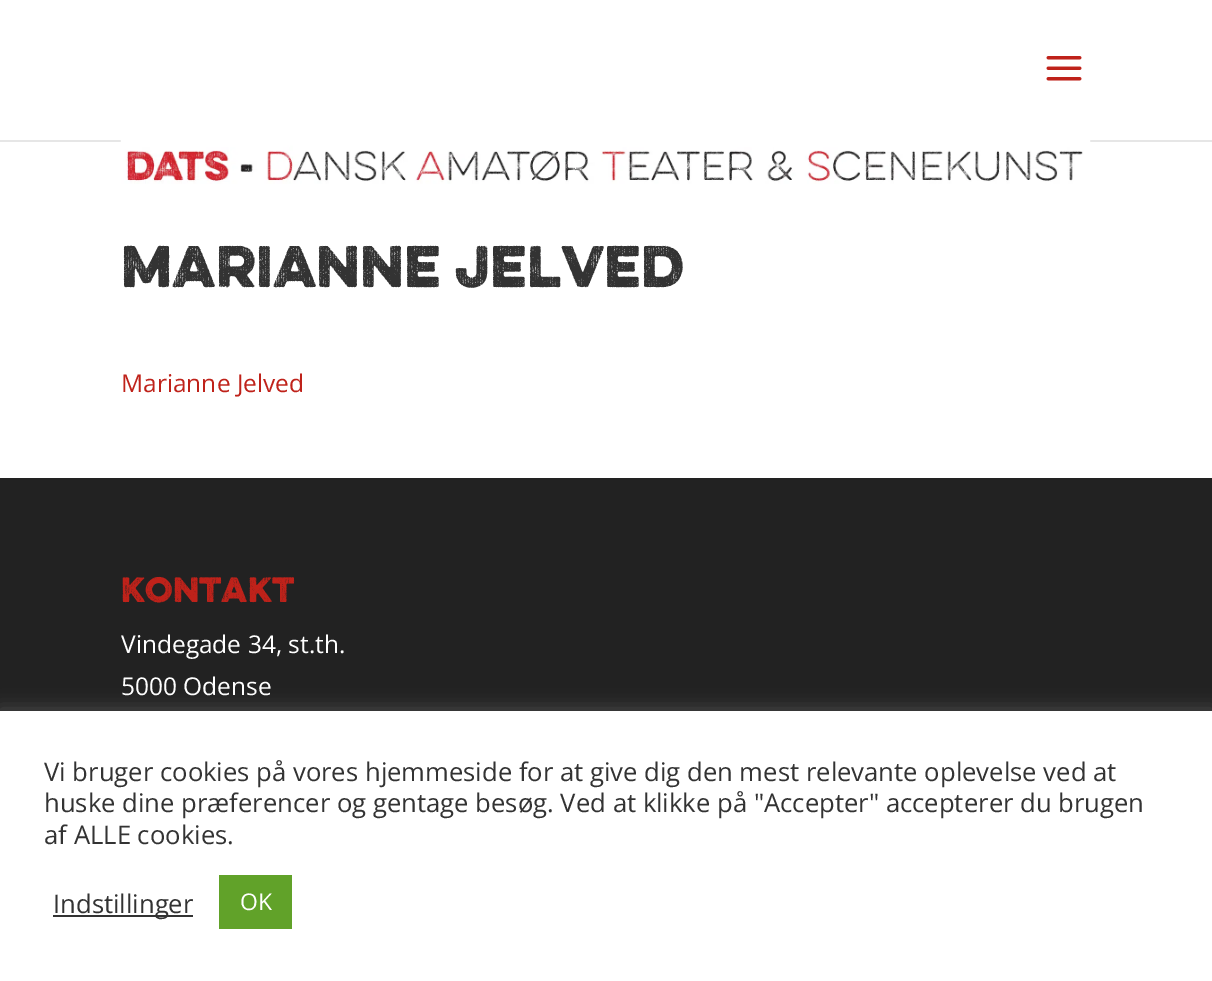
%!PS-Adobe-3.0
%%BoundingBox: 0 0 1212 981
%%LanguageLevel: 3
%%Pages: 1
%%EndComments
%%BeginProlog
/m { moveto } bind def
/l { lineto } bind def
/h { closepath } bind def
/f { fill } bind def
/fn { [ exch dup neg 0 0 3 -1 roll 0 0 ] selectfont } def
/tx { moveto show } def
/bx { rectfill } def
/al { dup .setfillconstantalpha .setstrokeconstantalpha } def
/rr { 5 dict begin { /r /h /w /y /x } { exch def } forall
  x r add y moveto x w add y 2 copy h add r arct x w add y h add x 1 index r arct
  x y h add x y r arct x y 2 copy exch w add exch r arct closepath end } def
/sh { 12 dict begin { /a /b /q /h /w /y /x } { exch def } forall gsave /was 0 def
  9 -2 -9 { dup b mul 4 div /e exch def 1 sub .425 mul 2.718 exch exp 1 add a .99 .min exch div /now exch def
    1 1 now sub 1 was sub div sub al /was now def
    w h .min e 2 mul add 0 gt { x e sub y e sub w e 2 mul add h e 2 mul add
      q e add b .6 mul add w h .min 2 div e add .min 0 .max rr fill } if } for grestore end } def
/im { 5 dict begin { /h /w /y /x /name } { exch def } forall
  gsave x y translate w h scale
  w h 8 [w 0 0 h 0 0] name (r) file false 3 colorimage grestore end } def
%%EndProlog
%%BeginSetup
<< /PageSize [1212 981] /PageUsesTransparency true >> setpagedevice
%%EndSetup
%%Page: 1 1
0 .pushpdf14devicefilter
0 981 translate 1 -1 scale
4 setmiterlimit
1 setgray
0 0 1212 981 bx
0.902 setgray
0 140 m 0 142 l 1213 142 l 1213 2 l 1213 140 l h f
(image0.raw) 1046 56 36 25 im
(image1.raw) 120 140 971 44 im
/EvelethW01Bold-Bold 52.5 fn
0.2 setgray
(Marianne Jelved) 121 287 tx
/OpenSans-Regular 24.5 fn
0.749 0.133 0.102 setrgbcolor
(Marianne Jelved) 121 392 tx
0.133 setgray
0 478 1212 233 bx
/EvelethW01Bold-Bold 31.5 fn
0.749 0.133 0.102 setrgbcolor
(Kontakt) 121 602 tx
/OpenSans-Regular 24.5 fn
1 setgray
(Vindegade 34, st.th.) 121 653 tx
(5000 Odense) 121 695 tx
0.675 0.671 0.671 setrgbcolor
0 709 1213 271 0 9 0.3 sh
1 setgray
0 711 1212 270 bx
/OpenSans-Regular 25.65 fn
0.2 setgray
(Vi bruger cookies på vores hjemmeside for at give dig den mest relevante oplevelse ved at) 44 781 tx
(huske dine præferencer og gentage besøg. Ved at klikke på "Accepter" accepterer du brugen) 44 812 tx
(af ALLE cookies.) 44 844 tx
53 915 140 2 bx
(Indstillinger) 53 913 tx
0.38 0.635 0.161 setrgbcolor
219 875 73 54 bx
/OpenSans-Regular 23 fn
1 setgray
(OK) 240 910 tx
.poppdf14devicefilter showpage
%%EOF
